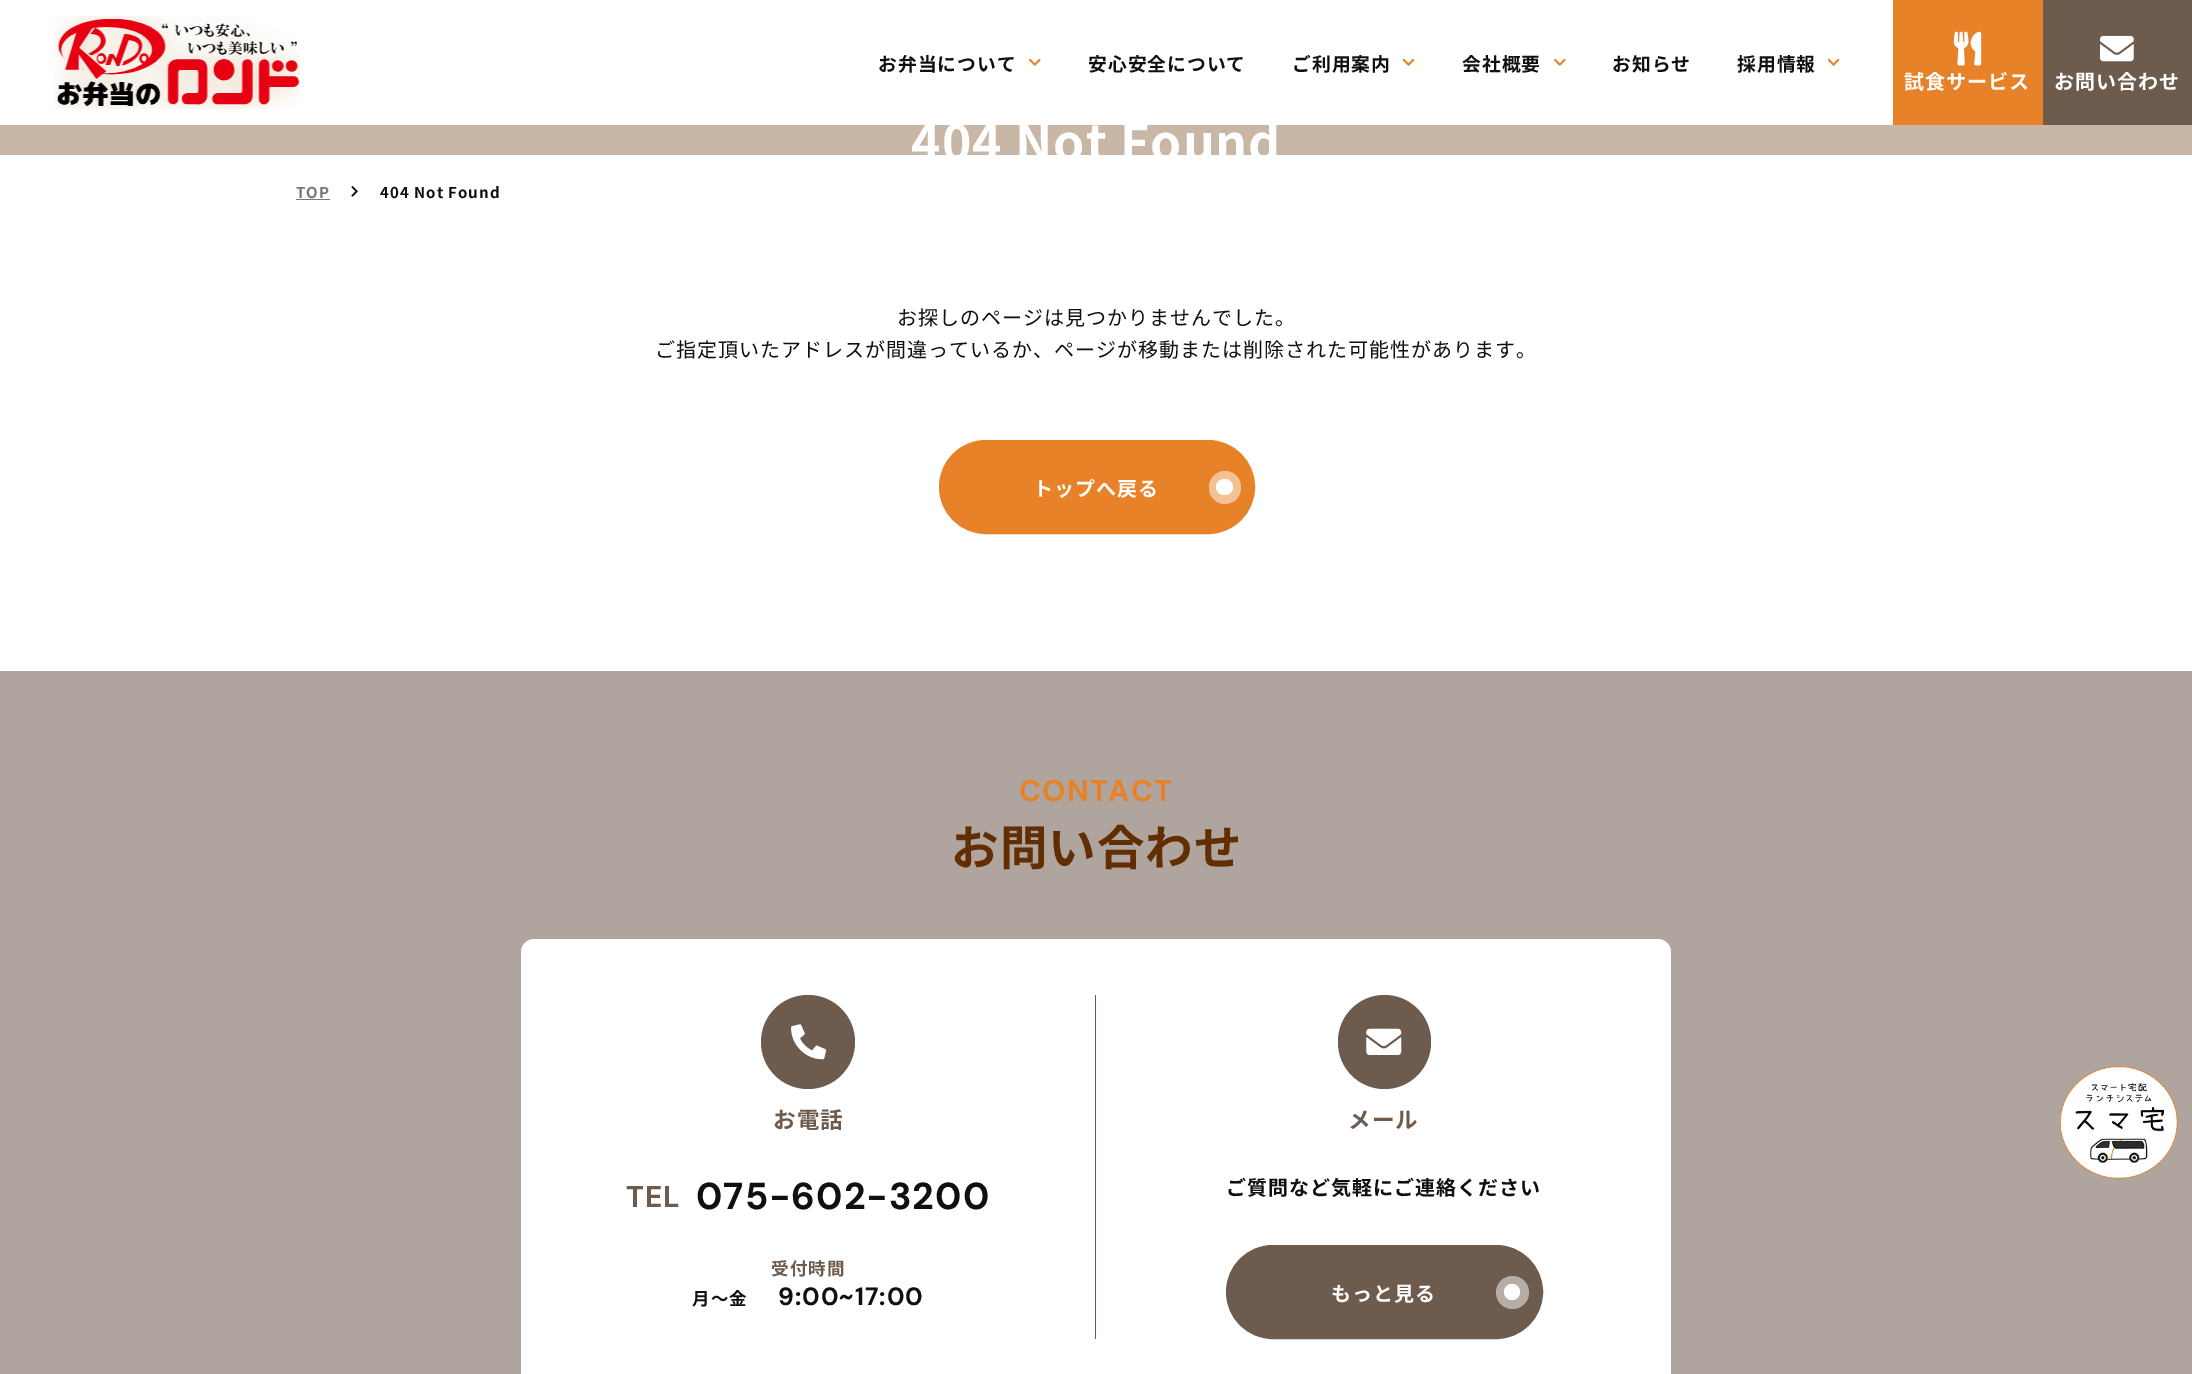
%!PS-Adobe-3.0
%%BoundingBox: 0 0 2192 1374
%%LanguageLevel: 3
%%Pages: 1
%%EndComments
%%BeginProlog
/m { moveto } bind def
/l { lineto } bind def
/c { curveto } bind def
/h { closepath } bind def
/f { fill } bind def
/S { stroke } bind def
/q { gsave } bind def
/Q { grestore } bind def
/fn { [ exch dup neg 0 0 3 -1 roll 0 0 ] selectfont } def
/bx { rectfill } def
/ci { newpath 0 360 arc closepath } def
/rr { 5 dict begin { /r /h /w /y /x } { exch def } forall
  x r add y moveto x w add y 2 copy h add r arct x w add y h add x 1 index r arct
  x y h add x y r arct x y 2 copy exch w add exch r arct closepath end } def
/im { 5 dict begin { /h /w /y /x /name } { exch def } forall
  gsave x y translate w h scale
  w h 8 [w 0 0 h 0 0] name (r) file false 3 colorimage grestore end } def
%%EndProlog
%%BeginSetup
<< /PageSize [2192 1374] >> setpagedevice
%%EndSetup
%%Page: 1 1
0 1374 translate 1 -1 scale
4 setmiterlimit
1 setgray
0 0 2192 1374 bx
(image0.raw) 55 16 245 93 im
/NotoSansJP-Bold 18.75 fn
0.063 setgray
878 71 m 1 0 (お弁当について) ashow
(image1.raw) 1029 58 12 8 im
1088 71 m 1 0 (安心安全について) ashow
1292 71 m 1 0 (ご利用案内) ashow
(image2.raw) 1402 58 13 8 im
1462 71 m 1 0 (会社概要) ashow
(image1.raw) 1554 58 12 8 im
1612 71 m 1 0 (お知らせ) ashow
1737 71 m 1 0 (採用情報) ashow
(image2.raw) 1827 58 13 8 im
0.91 0.51 0.161 setrgbcolor
1893 0 150 125 bx
(image3.raw) 1953 31 29 35 im
/NotoSansJP-Bold 20 fn
1 setgray
1904 89 m 1 0 (試食サービス) ashow
0.427 0.357 0.302 setrgbcolor
2043 0 149 125 bx
(image4.raw) 2100 35 34 27 im
1 setgray
2054 89 m 1 0 (お問い合わせ) ashow
0.784 0.714 0.651 setrgbcolor
0 125 2192 30 bx
/NotoSansJP-Bold 50 fn
1 setgray
911 161 m 1 0 (404 Not Found) ashow
/NotoSansJP-Bold 15 fn
0.471 0.463 0.463 setrgbcolor
296 198 m 1 0 (TOP) ashow
296 199 34 1 bx
(image5.raw) 351 186 7 11 im
0.063 setgray
380 198 m 1 0 (404 Not Found) ashow
/NotoSansJP-Regular 20 fn
897 325 m 1 0 (お探しのページは見つかりませんでした。) ashow
655 357 m 1 0 (ご指定頂いたアドレスが間違っているか、ページが移動または削除された可能性があります。) ashow
0.91 0.51 0.161 setrgbcolor
939.5 440.5 315 93 46.5 rr q f Q
S
/NotoSansJP-Bold 20 fn
1 setgray
1033 496 m 1 0 (トップへ戻る) ashow
0.957 0.757 0.58 setrgbcolor
1209 471 32 33 16 rr f
1 setgray
1216 479 17 16 8 rr f
0.69 0.643 0.62 setrgbcolor
0 671 2192 703 bx
/DMSans-Bold 30 fn
0.91 0.51 0.161 setrgbcolor
1019 801 m 1 0 (CONTACT) ashow
/NotoSansJP-Bold 47.5 fn
0.38 0.176 0.004 setrgbcolor
951 865 m 1 0 (お問い合わせ) ashow
1 setgray
534 939 m 1096 939 l 1096 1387 l 534 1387 l 527 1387 521 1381 521 1374 c 521 952 l 521 945 527 939 534 939 c h f
0.427 0.357 0.302 setrgbcolor
1095 995 1 344 bx
855 1042 m 855 1068 834 1089 808 1089 c 782 1089 761 1068 761 1042 c 761 1016 782 995 808 995 c 834 995 855 1016 855 1042 c h f
(image6.raw) 791 1024 36 36 im
/NotoSansJP-Bold 22.5 fn
773 1128 m 1 0 (お電話) ashow
/DMSans-Bold 30 fn
626 1207 m 1 0 (TEL) ashow
/DMSans-Bold 37.5 fn
0.063 setgray
696 1209 m 1 0 (075-602-3200) ashow
/NotoSansJP-Bold 17.5 fn
0.427 0.357 0.302 setrgbcolor
771 1275 m 1 0 (受付時間) ashow
0.063 setgray
692 1305 m 1 0 (月～金) ashow
/DMSans-Bold 25 fn
778 1305 m 1 0 (9:00~17:00) ashow
1 setgray
1096 939 m 1658 939 l 1665 939 1671 945 1671 952 c 1671 1374 l 1671 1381 1665 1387 1658 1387 c 1096 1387 l h f
0.427 0.357 0.302 setrgbcolor
1338 995 93 94 46.5 rr f
(image7.raw) 1366 1028 36 27 im
/NotoSansJP-Bold 22.5 fn
1348 1128 m 1 0 (メール) ashow
/NotoSansJP-Bold 20 fn
0.063 setgray
1226 1195 m 1 0 (ご質問など気軽にご連絡ください) ashow
0.427 0.357 0.302 setrgbcolor
1226.5 1245.5 316 93 46.5 rr q f Q
S
1 setgray
1331 1301 m 1 0 (もっと見る) ashow
0.714 0.678 0.651 setrgbcolor
1512.5 1292.5 16.5 ci f
1 setgray
1512 1292 8 ci f
(image8.raw) 2060 1066 118 113 im
showpage
%%EOF
